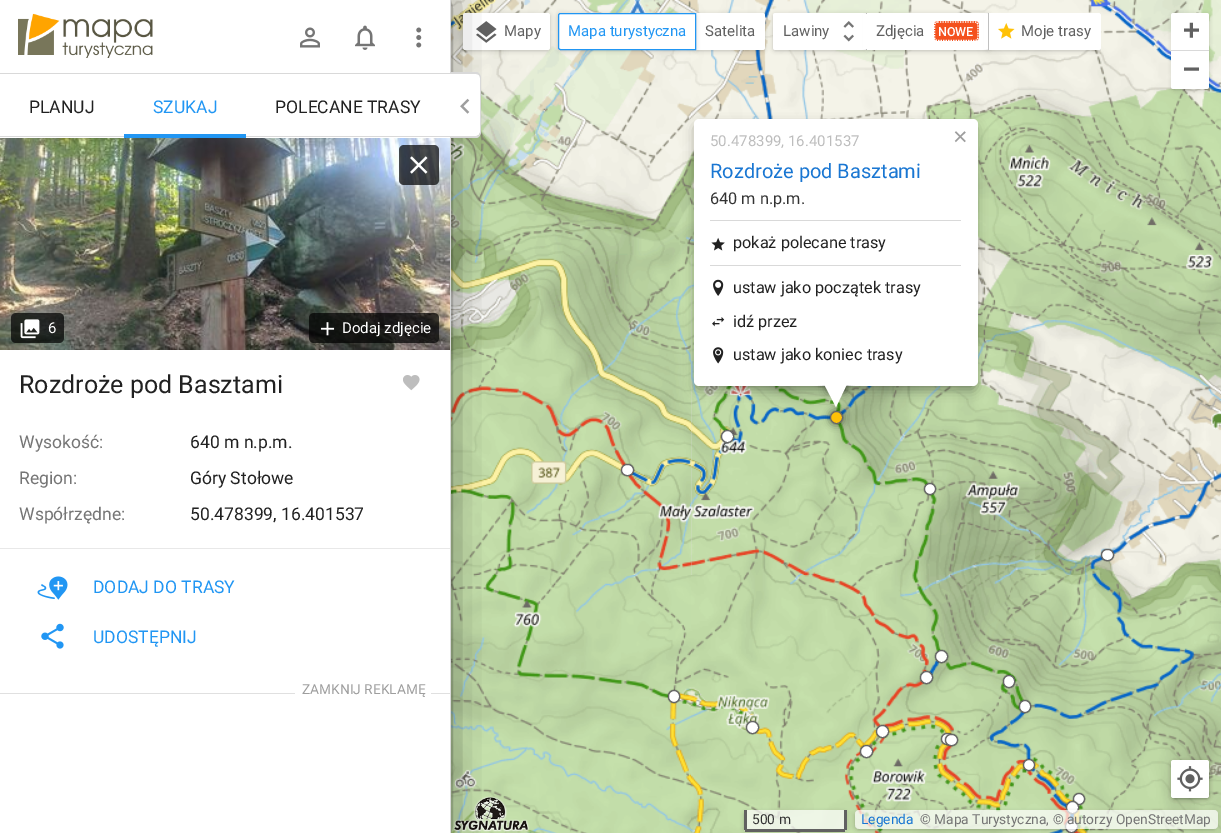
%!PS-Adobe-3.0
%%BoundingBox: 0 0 1221 833
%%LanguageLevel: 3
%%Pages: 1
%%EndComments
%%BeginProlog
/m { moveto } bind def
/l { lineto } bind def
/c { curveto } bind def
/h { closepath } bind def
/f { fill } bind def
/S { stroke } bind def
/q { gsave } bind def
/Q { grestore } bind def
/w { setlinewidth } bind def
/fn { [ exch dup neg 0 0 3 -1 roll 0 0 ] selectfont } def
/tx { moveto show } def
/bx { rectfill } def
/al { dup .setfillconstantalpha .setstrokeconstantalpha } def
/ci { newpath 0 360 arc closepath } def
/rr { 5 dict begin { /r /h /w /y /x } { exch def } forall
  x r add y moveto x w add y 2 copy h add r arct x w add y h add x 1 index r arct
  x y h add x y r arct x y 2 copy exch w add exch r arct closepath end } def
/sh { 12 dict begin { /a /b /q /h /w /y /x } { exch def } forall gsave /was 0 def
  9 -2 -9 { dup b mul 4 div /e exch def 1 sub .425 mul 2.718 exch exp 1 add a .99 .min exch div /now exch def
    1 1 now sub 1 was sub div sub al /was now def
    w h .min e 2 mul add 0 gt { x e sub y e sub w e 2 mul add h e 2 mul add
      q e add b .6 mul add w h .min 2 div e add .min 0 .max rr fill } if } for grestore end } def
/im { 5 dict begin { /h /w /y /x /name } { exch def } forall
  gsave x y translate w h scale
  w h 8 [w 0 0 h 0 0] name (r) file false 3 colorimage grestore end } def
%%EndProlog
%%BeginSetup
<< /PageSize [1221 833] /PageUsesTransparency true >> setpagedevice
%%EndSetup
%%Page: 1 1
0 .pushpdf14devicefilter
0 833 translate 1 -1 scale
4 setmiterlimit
1 setgray
0 0 1221 833 bx
(image17.raw) 451 0 240 255 im
0 setgray
464 15 85 35 1 2.5 0.3 sh
1 setgray
463 13 87 37 2.5 rr f
(image12.raw) 476 21 21 22 im
(image23.raw) 451 575 240 258 im
(image15.raw) 453 796 77 36 im
(image20.raw) 451 255 240 320 im
0 setgray
-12 0 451 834 0 19 1 sh
1 setgray
0 0 450 833 bx
0.851 setgray
450 0 1 833 bx
0 73 450 1 bx
(image0.raw) 18 13 135 45 im
(image1.raw) 300 27 20 21 im
(image2.raw) 355 25 20 25 im
(image3.raw) 416 27 6 21 im
0 136 450 1 bx
/Roboto-Regular 17.5 fn
0.129 setgray
(PLANUJ) 29 113 tx
0.129 0.588 0.953 setrgbcolor
124 134 122 4 bx
(SZUKAJ) 153 113 tx
0.129 setgray
(POLECANE TRASY) 275 113 tx
(image5.raw) 0 138 450 212 im
0.7 al
0 setgray
399 145 40 40 5 rr f
1 al
(image4.raw) 410 156 18 18 im
0.7 al
11 313 53 30 5 rr f
1 al
(image6.raw) 20 319 20 20 im
/Roboto-Regular 15 fn
1 setgray
(6) 48 333 tx
0.7 al
0 setgray
309 313 130 30 5 rr f
1 al
(image7.raw) 320 322 15 14 im
1 setgray
(Dodaj zdjęcie) 342 333 tx
/Roboto-Regular 25 fn
0.129 setgray
(Rozdroże pod Basztami) 19 393 tx
(image8.raw) 403 375 17 16 im
0.91 setgray
0 548 450 1 bx
/Roboto-Regular 17.5 fn
0.459 setgray
(Wysokość:) 19 448 tx
0.129 setgray
(640 m n.p.m.) 190 448 tx
0.459 setgray
(Region:) 19 484 tx
0.129 setgray
(Góry Stołowe) 190 484 tx
0.459 setgray
(Współrzędne:) 19 520 tx
0.129 setgray
(50.478399, 16.401537) 190 520 tx
(image9.raw) 37 576 31 24 im
0.129 0.588 0.953 setrgbcolor
(DODAJ DO TRASY) 93 593 tx
(image10.raw) 41 623 23 26 im
(UDOSTĘPNIJ) 93 643 tx
1 setgray
450 74 m 476 74 l 478 74 480 76 480 78 c 480 132 l 480 134 478 136 476 136 c 450 136 l h f
0.851 setgray
450 72 m 476 72 l 479 72 481 75 481 78 c 481 132 l 481 135 479 138 476 138 c 450 138 l h 450 74 m 476 74 l 478 74 480 75 480 78 c 480 132 l 480 135 478 136 476 136 c 450 136 l h eofill
(image11.raw) 460 98 10 16 im
0.878 setgray
0 693 450 1 bx
1 setgray
295 693 136 1 bx
/Roboto-Regular 13.75 fn
0.62 setgray
(ZAMKNIJ REKLAMĘ) 302 694 tx
/Roboto-Regular 15 fn
0.38 setgray
(Mapy) 504 36 tx
(image18.raw) 691 0 320 255 im
0 setgray
696 15 68 35 1 2.5 0.3 sh
1 setgray
695 13 m 762.5 13 l 764 13 765 14 765 15.5 c 765 47.5 l 765 49 764 50 762.5 50 c 695 50 l h f
0 setgray
559 15 136 35 1 2.5 0.3 sh
1 setgray
560.5 13.5 m 695.5 13.5 l 695.5 49.5 l 560.5 49.5 l 559.5 49.5 558.5 48.5 558.5 47.5 c 558.5 15.5 l 558.5 14.5 559.5 13.5 560.5 13.5 c h q f Q
0.129 0.588 0.953 setrgbcolor
S
(Mapa turystyczna) 568 36 tx
0.38 setgray
(Satelita) 705 36 tx
0 setgray
774 15 92 35 1 2.5 0.3 sh
1 setgray
775.5 13 m 868 13 l 868 50 l 775.5 50 l 774 50 773 49 773 47.5 c 773 15.5 l 773 14 774 13 775.5 13 c h f
0 setgray
868 15 120 35 0 2.5 0.3 sh
0.753 setgray
866 13 1 37 bx
0.38 setgray
(Lawiny) 783 36 tx
(image13.raw) 843 21 11 21 im
1 setgray
863 14 4 35 bx
867 13 121 37 bx
0.38 setgray
(Zdjęcia) 876 36 tx
0.957 0.318 0.118 setrgbcolor
934 21 45 20 4 rr f
1 setgray
1.2 w
[1.25 1.25] 0 setdash
937.5 22 m 975 22 l 976.5 22 978 23.5 978 25 c 978 37.5 l 978 39 976.5 40.5 975 40.5 c 937.5 40.5 l 936 40.5 934.5 39 934.5 37.5 c 934.5 25 l 934.5 23.5 936 22 937.5 22 c h S
/Roboto-Medium 12.5 fn
(NOWE) 938 36 tx
(image19.raw) 1011 0 210 255 im
q
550 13 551 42 rectclip
0 setgray
989 15 111 35 1 2.5 0.3 sh
Q
984 14 4 35 bx
988 13 m 1098.5 13 l 1100 13 1101 14 1101 15.5 c 1101 47.5 l 1101 49 1100 50 1098.5 50 c 988 50 l h f
0.753 setgray
988 13 1 37 bx
(image14.raw) 998 23 17 16 im
/Roboto-Regular 15 fn
0.38 setgray
(Moje trasy) 1021 36 tx
0 setgray
1173 15 35 74 1 2.5 0.3 sh
1 setgray
1173.5 13 m 1206.5 13 l 1208 13 1209 14 1209 15.5 c 1209 51 l 1171 51 l 1171 15.5 l 1171 14 1172 13 1173.5 13 c h f
0.851 setgray
1171 50 38 1 bx
/DejaVuSansMono-Bold 28 fn
0.38 setgray
(+) 1183 39 tx
1 setgray
1171 51 m 1209 51 l 1209 86.5 l 1209 88 1208 89 1206.5 89 c 1173.5 89 l 1172 89 1171 88 1171 86.5 c h f
0.38 setgray
(−) 1183 78 tx
(image25.raw) 1011 575 210 258 im
0 setgray
1173 763 35 35 1 2.5 0.3 sh
1173 763 35 35 1 2.5 0.3 sh
1 setgray
1171 760 38 38 2.5 rr f
(image16.raw) 1177 766 26 26 im
(image24.raw) 691 575 320 258 im
q
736 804 m 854 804 l 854 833 l 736 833 l h 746.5 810 m 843.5 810 l 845 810 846 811 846 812.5 c 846 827.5 l 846 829 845 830 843.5 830 c 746.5 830 l 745 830 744 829 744 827.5 c 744 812.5 l 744 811 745 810 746.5 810 c h eoclip newpath
0 setgray
745 813 100 17 1 2.5 0.3 sh
Q
0.7 al
744 810 m 846 810 l 846 828.5 l 846 830 845 831 843.5 831 c 746.5 831 l 745 831 744 830 744 828.5 c h f
1 al
0.38 setgray
844 810 3 20 bx
745 829 100 3 bx
744 810 3 20 bx
/Roboto-Regular 13.75 fn
0.2 setgray
(500 m) 752 824 tx
0 setgray
1073 793 12 12 6 0.5 0.5 sh
1 setgray
1079 799 5.5 ci q f Q
0.4 setgray
1 w
[] 0 setdash
S
0 setgray
1066 801 13 13 6.5 0.5 0.5 sh
1 setgray
1072.5 807.5 6 ci q f Q
0.4 setgray
S
0 setgray
1065 820 13 13 6.5 0.5 0.5 sh
1 setgray
1071.5 826.5 6 ci q f Q
0.4 setgray
S
q
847 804 m 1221 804 l 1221 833 l 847 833 l h 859 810 m 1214 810 l 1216 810 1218 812 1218 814 c 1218 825 l 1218 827 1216 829 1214 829 c 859 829 l 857 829 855 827 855 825 c 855 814 l 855 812 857 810 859 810 c h eoclip newpath
0 setgray
856 813 360 16 2.5 2.5 0.3 sh
Q
0.7 al
1 setgray
855 810 363 19 4 rr f
1 al
0.098 0.463 0.824 setrgbcolor
(Legenda) 861 824 tx
0.459 setgray
(© Mapa Turystyczna, © autorzy OpenStreetMap) 920 824 tx
(image21.raw) 691 255 320 320 im
(image22.raw) 1011 255 210 320 im
0 setgray
696 126 279 263 2.5 6 0.4 sh
1 setgray
694 119 284 267 5 rr f
/Roboto-Regular 15 fn
0.741 setgray
(50.478399, 16.401537) 710 146 tx
/Roboto-Regular 20 fn
0.098 0.463 0.824 setrgbcolor
(Rozdroże pod Basztami) 710 178 tx
/Roboto-Regular 16.25 fn
0.2 setgray
(640 m n.p.m.) 710 204 tx
0.851 setgray
710 220 251 1 bx
(image26.raw) 711 237 14 14 im
0.129 setgray
(pokaż polecane trasy) 733 248 tx
0.851 setgray
710 265 251 1 bx
(image27.raw) 713 279 11 17 im
0.129 setgray
(ustaw jako początek trasy) 733 293 tx
(image28.raw) 712 317 13 10 im
(idź przez) 733 327 tx
(image29.raw) 713 347 11 17 im
(ustaw jako koniec trasy) 733 360 tx
/LiberationSans-Regular 25 fn
0.62 setgray
(×) 953 145 tx
q
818 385 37 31 rectclip
0 setgray
828 374 17 17 0 4.5 0.7 sh
Q
0 setgray
830 411 13 13 6.5 4 0.5 sh
q
818 385 37 31 rectclip
1 setgray
836 358 m 848 382 l 836 407 l 823 382 l h f
Q
721 430 13 13 6.5 0.5 0.5 sh
1 setgray
727.5 436.5 6 ci q f Q
0.4 setgray
S
1 0.757 0.027 setrgbcolor
836.5 417.5 6 ci q f Q
0.4 setgray
S
0 setgray
621 464 13 12 6 0.5 0.5 sh
1 setgray
621.5 464.5 12 11 5.5 rr q f Q
0.4 setgray
S
0 setgray
924 483 12 12 6 0.5 0.5 sh
1 setgray
930 489 5.5 ci q f Q
0.4 setgray
S
0 setgray
1101 549 13 12 6 0.5 0.5 sh
1 setgray
1101.5 549.5 12 11 5.5 rr q f Q
0.4 setgray
S
0 setgray
935 650 13 13 6.5 0.5 0.5 sh
1 setgray
941.5 656.5 6 ci q f Q
0.4 setgray
S
0 setgray
920 671 13 13 6.5 0.5 0.5 sh
1 setgray
926.5 677.5 6 ci q f Q
0.4 setgray
S
0 setgray
1003 675 12 13 6 0.5 0.5 sh
1 setgray
1003.5 675.5 11 12 5.5 rr q f Q
0.4 setgray
S
0 setgray
668 690 12 13 6 0.5 0.5 sh
1 setgray
668.5 690.5 11 12 5.5 rr q f Q
0.4 setgray
S
0 setgray
1019 700 12 13 6 0.5 0.5 sh
1 setgray
1019.5 700.5 11 12 5.5 rr q f Q
0.4 setgray
S
0 setgray
746 721 13 13 6.5 0.5 0.5 sh
1 setgray
752.5 727.5 6 ci q f Q
0.4 setgray
S
0 setgray
876 725 13 13 6.5 0.5 0.5 sh
1 setgray
882.5 731.5 6 ci q f Q
0.4 setgray
S
0 setgray
941 733 13 12 6 0.5 0.5 sh
1 setgray
941.5 733.5 12 11 5.5 rr q f Q
0.4 setgray
S
0 setgray
945 734 13 12 6 0.5 0.5 sh
1 setgray
945.5 734.5 12 11 5.5 rr q f Q
0.4 setgray
S
0 setgray
860 745 13 13 6.5 0.5 0.5 sh
1 setgray
866.5 751.5 6 ci q f Q
0.4 setgray
S
0 setgray
1023 759 12 12 6 0.5 0.5 sh
1 setgray
1029 765 5.5 ci q f Q
0.4 setgray
S
.poppdf14devicefilter showpage
%%EOF
